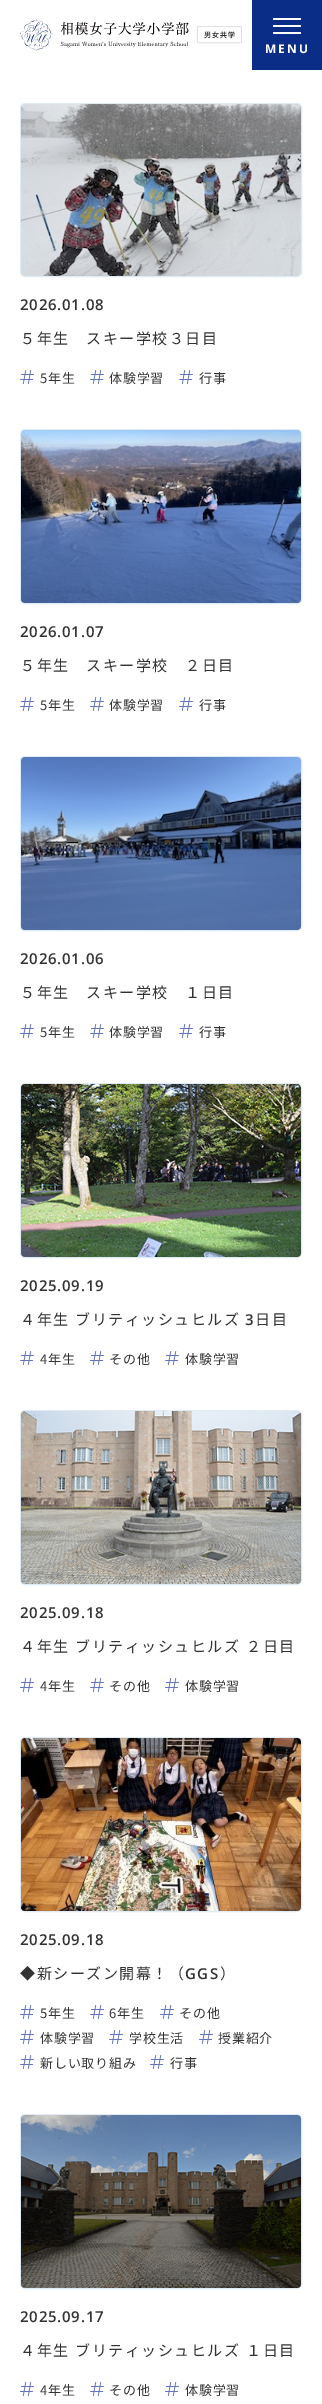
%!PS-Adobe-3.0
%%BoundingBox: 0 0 322 2404
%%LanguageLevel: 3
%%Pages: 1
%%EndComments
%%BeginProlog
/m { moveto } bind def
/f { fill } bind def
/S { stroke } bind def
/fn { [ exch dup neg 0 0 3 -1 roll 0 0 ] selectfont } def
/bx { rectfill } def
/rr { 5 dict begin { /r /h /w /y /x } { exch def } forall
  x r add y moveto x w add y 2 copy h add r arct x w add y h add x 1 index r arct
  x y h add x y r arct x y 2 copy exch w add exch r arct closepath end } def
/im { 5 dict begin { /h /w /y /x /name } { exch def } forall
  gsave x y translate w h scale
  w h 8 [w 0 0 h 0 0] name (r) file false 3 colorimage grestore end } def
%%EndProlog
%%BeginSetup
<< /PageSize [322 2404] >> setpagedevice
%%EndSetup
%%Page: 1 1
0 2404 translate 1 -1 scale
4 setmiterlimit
1 setgray
0 0 322 2404 bx
(image0.raw) 20 19 222 32 im
0.039 0.176 0.533 setrgbcolor
252 0 70 70 bx
1 setgray
273 25 28 2 1 rr f
273 18 28 2 1 rr f
273 32 28 2 1 rr f
/OpenSans-Bold 12 fn
265 53 m 2 0 (MENU) ashow
0.878 0.925 0.961 setrgbcolor
20.5 103.5 281 173 4.5 rr S
(image1.raw) 21 104 280 172 im
/OpenSans-SemiBold 15 fn
0.2 setgray
20 310 m 0.75 0 (2026.01.08) ashow
/NotoSansJP-Regular 15 fn
20 344 m 1.5 0 (５年生　スキー学校３日目) ashow
(image2.raw) 20 370 14 14 im
/NotoSansJP-Regular 13 fn
40 383 m 0.75 0 (5年生) ashow
(image2.raw) 90 370 14 14 im
109 383 m 0.75 0 (体験学習) ashow
(image2.raw) 179 370 14 14 im
199 383 m 0.75 0 (行事) ashow
0.878 0.925 0.961 setrgbcolor
20.5 429.5 281 174 4.5 rr S
(image3.raw) 21 430 280 173 im
/OpenSans-SemiBold 15 fn
0.2 setgray
20 637 m 0.75 0 (2026.01.07) ashow
/NotoSansJP-Regular 15 fn
20 671 m 1.5 0 (５年生　スキー学校　２日目) ashow
(image2.raw) 20 697 14 14 im
/NotoSansJP-Regular 13 fn
40 710 m 0.75 0 (5年生) ashow
(image2.raw) 90 697 14 14 im
109 710 m 0.75 0 (体験学習) ashow
(image2.raw) 179 697 14 14 im
199 710 m 0.75 0 (行事) ashow
0.878 0.925 0.961 setrgbcolor
20.5 756.5 281 174 4.5 rr S
(image4.raw) 21 757 280 173 im
/OpenSans-SemiBold 15 fn
0.2 setgray
20 964 m 0.75 0 (2026.01.06) ashow
/NotoSansJP-Regular 15 fn
20 998 m 1.5 0 (５年生　スキー学校　１日目) ashow
(image2.raw) 20 1024 14 14 im
/NotoSansJP-Regular 13 fn
40 1037 m 0.75 0 (5年生) ashow
(image2.raw) 90 1024 14 14 im
109 1037 m 0.75 0 (体験学習) ashow
(image2.raw) 179 1024 14 14 im
199 1037 m 0.75 0 (行事) ashow
0.878 0.925 0.961 setrgbcolor
20.5 1083.5 281 174 4.5 rr S
(image5.raw) 21 1084 280 173 im
/OpenSans-SemiBold 15 fn
0.2 setgray
20 1291 m 0.75 0 (2025.09.19) ashow
/NotoSansJP-Regular 15 fn
20 1325 m 1 0 32 1.5 0 (４年生 ブリティッシュヒルズ) awidthshow
/OpenSans-SemiBold 15 fn
245 1325 m 1.5 0 (3) ashow
/NotoSansJP-Regular 15 fn
255 1325 m 1.5 0 (日目) ashow
(image2.raw) 20 1351 14 14 im
/NotoSansJP-Regular 13 fn
40 1364 m 0.75 0 (4年生) ashow
(image2.raw) 90 1351 14 14 im
109 1364 m 0.75 0 (その他) ashow
(image2.raw) 165 1351 14 14 im
185 1364 m 0.75 0 (体験学習) ashow
0.878 0.925 0.961 setrgbcolor
20.5 1410.5 281 174 4.5 rr S
(image6.raw) 21 1411 280 173 im
/OpenSans-SemiBold 15 fn
0.2 setgray
20 1618 m 0.75 0 (2025.09.18) ashow
/NotoSansJP-Regular 15 fn
20 1652 m 1 0 32 1.5 0 (４年生 ブリティッシュヒルズ ２日目) awidthshow
(image2.raw) 20 1678 14 14 im
/NotoSansJP-Regular 13 fn
40 1691 m 0.75 0 (4年生) ashow
(image2.raw) 90 1678 14 14 im
109 1691 m 0.75 0 (その他) ashow
(image2.raw) 165 1678 14 14 im
185 1691 m 0.75 0 (体験学習) ashow
0.878 0.925 0.961 setrgbcolor
20.5 1737.5 281 174 4.5 rr S
(image7.raw) 21 1738 280 173 im
/OpenSans-SemiBold 15 fn
0.2 setgray
20 1945 m 0.75 0 (2025.09.18) ashow
/NotoSansJP-Regular 15 fn
20 1979 m 1.5 0 (◆新シーズン開幕！（) ashow
/OpenSans-SemiBold 15 fn
185 1979 m 1.5 0 (GGS) ashow
/NotoSansJP-Regular 15 fn
220 1979 m 1.5 0 (）) ashow
(image2.raw) 20 2005 14 14 im
/NotoSansJP-Regular 13 fn
40 2018 m 0.75 0 (5年生) ashow
(image2.raw) 90 2005 14 14 im
109 2018 m 0.75 0 (6年生) ashow
(image2.raw) 160 2005 14 14 im
179 2018 m 0.75 0 (その他) ashow
(image2.raw) 20 2030 14 14 im
40 2043 m 0.75 0 (体験学習) ashow
(image2.raw) 109 2030 14 14 im
129 2043 m 0.75 0 (学校生活) ashow
(image2.raw) 199 2030 14 14 im
218 2043 m 0.75 0 (授業紹介) ashow
(image2.raw) 20 2055 14 14 im
40 2068 m 0.75 0 (新しい取り組み) ashow
(image2.raw) 150 2055 14 14 im
170 2068 m 0.75 0 (行事) ashow
0.878 0.925 0.961 setrgbcolor
20.5 2114.5 281 174 4.5 rr S
(image8.raw) 21 2115 280 173 im
/OpenSans-SemiBold 15 fn
0.2 setgray
20 2322 m 0.75 0 (2025.09.17) ashow
/NotoSansJP-Regular 15 fn
20 2356 m 1 0 32 1.5 0 (４年生 ブリティッシュヒルズ １日目) awidthshow
(image2.raw) 20 2382 14 14 im
/NotoSansJP-Regular 13 fn
40 2395 m 0.75 0 (4年生) ashow
(image2.raw) 90 2382 14 14 im
109 2395 m 0.75 0 (その他) ashow
(image2.raw) 165 2382 14 14 im
185 2395 m 0.75 0 (体験学習) ashow
showpage
%%EOF
